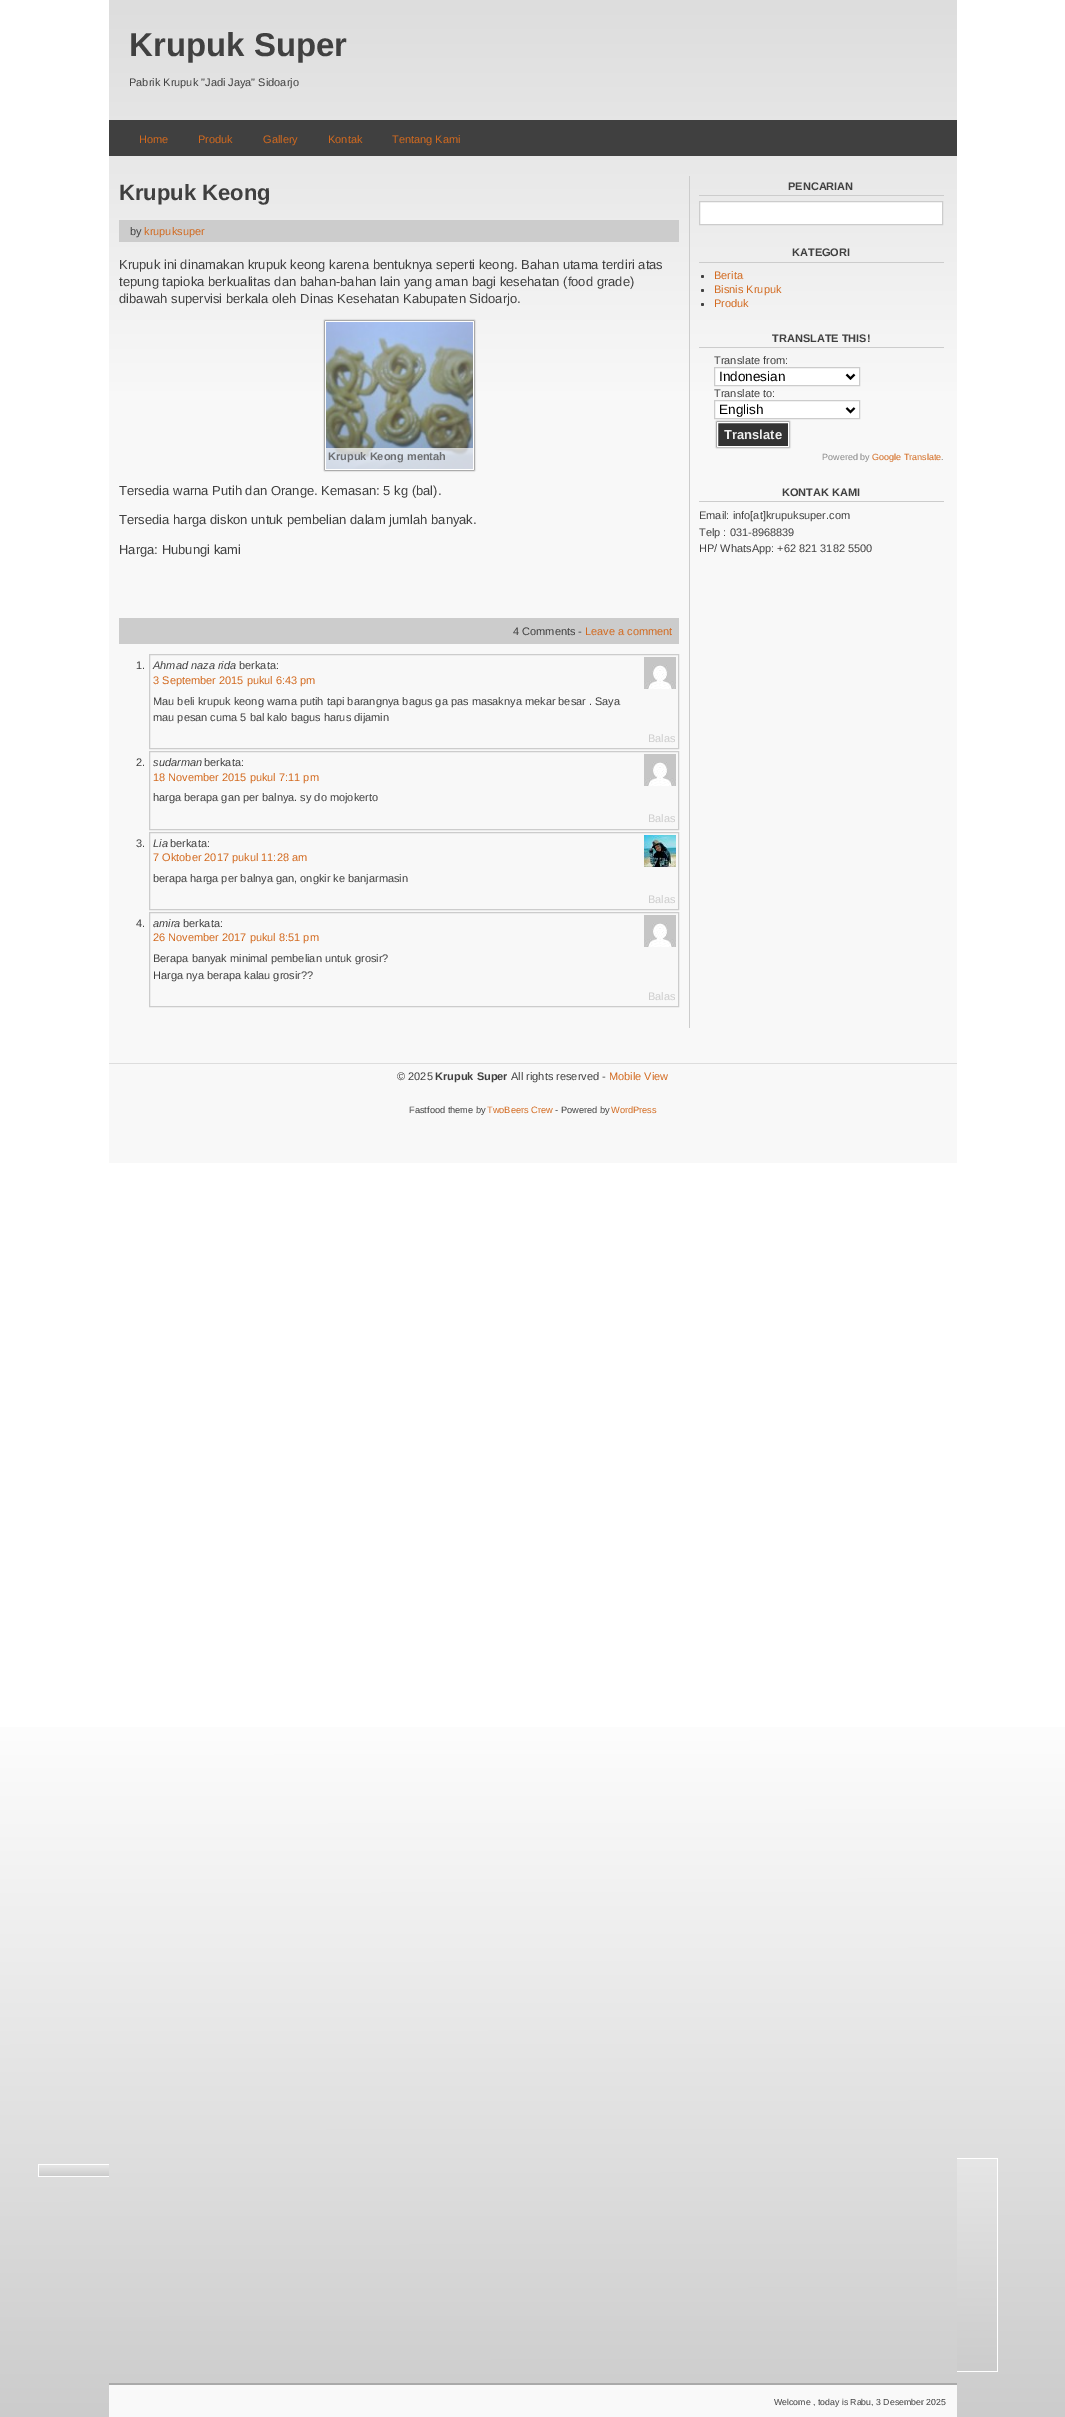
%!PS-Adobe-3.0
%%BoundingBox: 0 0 1065 2417
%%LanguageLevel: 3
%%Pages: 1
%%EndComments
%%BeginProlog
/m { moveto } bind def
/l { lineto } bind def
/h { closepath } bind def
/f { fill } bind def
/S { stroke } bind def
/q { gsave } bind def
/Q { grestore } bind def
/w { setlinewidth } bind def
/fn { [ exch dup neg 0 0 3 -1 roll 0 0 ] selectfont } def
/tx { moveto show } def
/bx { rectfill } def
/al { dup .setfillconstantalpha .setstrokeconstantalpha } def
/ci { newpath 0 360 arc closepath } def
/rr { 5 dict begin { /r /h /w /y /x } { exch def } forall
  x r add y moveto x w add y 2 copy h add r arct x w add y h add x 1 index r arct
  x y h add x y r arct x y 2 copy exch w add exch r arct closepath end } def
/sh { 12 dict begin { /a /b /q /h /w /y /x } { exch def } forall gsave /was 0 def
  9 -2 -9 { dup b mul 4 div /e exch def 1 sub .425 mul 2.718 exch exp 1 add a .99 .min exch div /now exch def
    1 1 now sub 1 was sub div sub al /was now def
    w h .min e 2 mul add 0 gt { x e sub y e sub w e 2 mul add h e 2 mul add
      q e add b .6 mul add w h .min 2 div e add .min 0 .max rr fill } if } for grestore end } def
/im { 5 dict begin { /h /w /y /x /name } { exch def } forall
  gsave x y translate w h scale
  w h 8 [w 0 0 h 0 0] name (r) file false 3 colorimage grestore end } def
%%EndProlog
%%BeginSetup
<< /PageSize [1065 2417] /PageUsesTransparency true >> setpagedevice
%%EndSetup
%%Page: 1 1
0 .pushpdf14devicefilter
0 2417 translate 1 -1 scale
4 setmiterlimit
1 setgray
0 0 1065 2417 bx
q 0 1727 m 1065 1727 l 1065 2417 l 0 2417 l h clip newpath
<< /ShadingType 2 /ColorSpace /DeviceRGB /Coords [532 0 533 2417] /Extend [true true] /Function << /FunctionType 3 /Domain [0 1] /Functions [<< /FunctionType 2 /Domain [0 1] /C0 [1 1 1] /C1 [1 1 1] /N 1 >> << /FunctionType 2 /Domain [0 1] /C0 [1 1 1] /C1 [0.8 0.8 0.8] /N 1 >>] /Bounds [0.7] /Encode [0 1 0 1] >> >> shfill Q
q 109 0 m 957 0 l 957 1163 l 109 1163 l h clip newpath
<< /ShadingType 2 /ColorSpace /DeviceRGB /Coords [533 0 533 1163] /Extend [true true] /Function << /FunctionType 3 /Domain [0 1] /Functions [<< /FunctionType 2 /Domain [0 1] /C0 [0.867 0.867 0.867] /C1 [0.973 0.973 0.973] /N 1 >> << /FunctionType 2 /Domain [0 1] /C0 [0.973 0.973 0.973] /C1 [0.973 0.973 0.973] /N 1 >>] /Bounds [0.34] /Encode [0 1 0 1] >> >> shfill Q
/LiberationSans-Bold 33 fn
0.251 setgray
(Krupuk Super) 129 56 tx
/LiberationSans-Regular 11 fn
(Pabrik Krupuk "Jadi Jaya" Sidoarjo) 129 86 tx
109 120 848 36 bx
0.824 0.412 0.118 setrgbcolor
(Home) 139 143 tx
(Produk) 198 143 tx
(Gallery) 263 143 tx
(Kontak) 328 143 tx
(Tentang Kami) 392 143 tx
0.8 setgray
689 176 1 852 bx
/LiberationSans-Bold 22 fn
0.251 setgray
(Krupuk Keong) 119 200 tx
0.8 setgray
119 220 560 22 bx
/LiberationSans-Regular 11 fn
0.251 setgray
(by) 130 235 tx
0.824 0.412 0.118 setrgbcolor
(krupuksuper) 144 235 tx
/LiberationSans-Regular 13 fn
0.251 setgray
(Krupuk ini dinamakan krupuk keong karena bentuknya seperti keong. Bahan utama terdiri atas) 119 269 tx
(tepung tapioka berkualitas dan bahan-bahan lain yang aman bagi kesehatan \(food grade\)) 119 286 tx
(dibawah supervisi berkala oleh Dinas Kesehatan Kabupaten Sidoarjo.) 119 303 tx
0 setgray
325 321 149 149 0 1 1 sh
1 setgray
325 321 149 149 bx
(image0.raw) 326 322 147 147 im
0.7 al
326 448 147 21 bx
/LiberationSans-Bold 11 fn
1 al
0.427 0.435 0.447 setrgbcolor
(Krupuk Keong mentah) 328 460 tx
/LiberationSans-Regular 13 fn
0.251 setgray
(Tersedia warna Putih dan Orange. Kemasan: 5 kg \(bal\).) 119 495 tx
(Tersedia harga diskon untuk pembelian dalam jumlah banyak.) 119 524 tx
(Harga: Hubungi kami) 119 554 tx
0.8 setgray
119 618 560 26 bx
/LiberationSans-Regular 11 fn
0.251 setgray
(4 Comments -) 513 635 tx
0.824 0.412 0.118 setrgbcolor
(Leave a comment) 585 635 tx
0.251 setgray
(1.) 136 669 tx
0.8 setgray
149.5 654.5 529 94 rectstroke
/LiberationSans-Italic 11 fn
0.251 setgray
(Ahmad naza rida) 153 669 tx
/LiberationSans-Regular 11 fn
(berkata:) 239 669 tx
(image1.raw) 644 657 32 32 im
0.824 0.412 0.118 setrgbcolor
(3 September 2015 pukul 6:43 pm) 153 684 tx
0.251 setgray
(Mau beli krupuk keong warna putih tapi barangnya bagus ga pas masaknya mekar besar . Saya) 153 705 tx
(mau pesan cuma 5 bal kalo bagus harus dijamin) 153 721 tx
0.8 setgray
(Balas) 648 742 tx
0.251 setgray
(2.) 136 766 tx
0.8 setgray
149.5 751.5 529 78 rectstroke
/LiberationSans-Italic 11 fn
0.251 setgray
(sudarman) 153 766 tx
/LiberationSans-Regular 11 fn
(berkata:) 204 766 tx
(image1.raw) 644 754 32 32 im
0.824 0.412 0.118 setrgbcolor
(18 November 2015 pukul 7:11 pm) 153 781 tx
0.251 setgray
(harga berapa gan per balnya. sy do mojokerto) 153 801 tx
0.8 setgray
(Balas) 648 822 tx
0.251 setgray
(3.) 136 847 tx
0.8 setgray
149.5 832.5 529 77 rectstroke
/LiberationSans-Italic 11 fn
0.251 setgray
(Lia) 153 847 tx
/LiberationSans-Regular 11 fn
(berkata:) 170 847 tx
(image2.raw) 644 835 32 32 im
0.824 0.412 0.118 setrgbcolor
(7 Oktober 2017 pukul 11:28 am) 153 861 tx
0.251 setgray
(berapa harga per balnya gan, ongkir ke banjarmasin) 153 882 tx
0.8 setgray
(Balas) 648 903 tx
0.251 setgray
(4.) 136 927 tx
0.8 setgray
149.5 912.5 529 94 rectstroke
/LiberationSans-Italic 11 fn
0.251 setgray
(amira) 153 927 tx
/LiberationSans-Regular 11 fn
(berkata:) 183 927 tx
(image1.raw) 644 915 32 32 im
0.824 0.412 0.118 setrgbcolor
(26 November 2017 pukul 8:51 pm) 153 941 tx
0.251 setgray
(Berapa banyak minimal pembelian untuk grosir?) 153 962 tx
(Harga nya berapa kalau grosir??) 153 979 tx
0.8 setgray
(Balas) 648 1000 tx
1 setgray
38 2164 71 13 bx
q 39 2165 m 109 2165 l 109 2176 l 39 2176 l h clip newpath
<< /ShadingType 2 /ColorSpace /DeviceRGB /Coords [74 2165 74 2176] /Extend [true true] /Function << /FunctionType 2 /Domain [0 1] /C0 [0.902 0.902 0.902] /C1 [0.8 0.8 0.8] /N 1 >> >> shfill Q
0.8 setgray
699 195 245 1 bx
/LiberationSans-Bold 11 fn
0.251 setgray
(PENCARIAN) 788 190 tx
1 setgray
699.5 201.5 m 942.5 201.5 l 942.5 224.5 l 699.5 224.5 l h q f Q
0.8 setgray
S
699 262 245 1 bx
0.251 setgray
(KATEGORI) 792 256 tx
702.5 276.5 1.5 ci f
/LiberationSans-Regular 11 fn
0.824 0.412 0.118 setrgbcolor
(Berita) 714 279 tx
0.251 setgray
702.5 290.5 1.5 ci f
0.824 0.412 0.118 setrgbcolor
(Bisnis Krupuk) 714 293 tx
0.251 setgray
702.5 304.5 1.5 ci f
0.824 0.412 0.118 setrgbcolor
(Produk) 714 307 tx
0.8 setgray
699 347 245 1 bx
/LiberationSans-Bold 11 fn
0.251 setgray
(TRANSLATE THIS!) 772 342 tx
/LiberationSans-Regular 11 fn
(Translate from:) 714 364 tx
1 setgray
714.5 367.5 m 859.5 367.5 l 859.5 385.5 l 714.5 385.5 l h q f Q
0.8 setgray
S
0 setgray
2 w
846.5 374.5 m 850.5 378.5 l 854.5 374.5 l S
/LiberationSans-Regular 13.5 fn
(Indonesian) 719 381 tx
/LiberationSans-Regular 11 fn
0.251 setgray
(Translate to:) 714 397 tx
1 setgray
714.5 400.5 m 859.5 400.5 l 859.5 418.5 l 714.5 418.5 l h q f Q
0.8 setgray
1 w
S
0 setgray
2 w
846.5 408 m 850.5 412 l 854.5 408 l S
/LiberationSans-Regular 13.5 fn
(English) 719 414 tx
717 422 72 25 0 1 1 sh
0.2 setgray
717.5 422.5 m 788.5 422.5 l 788.5 446.5 l 717.5 446.5 l h q f Q
1 setgray
1 w
S
/LiberationSans-Bold 13 fn
0.933 setgray
(Translate) 724 439 tx
/LiberationSans-Regular 9 fn
0.533 setgray
(Powered by) 822 460 tx
0.824 0.412 0.118 setrgbcolor
(Google Translate) 872 460 tx
0.533 setgray
(.) 941 460 tx
0.8 setgray
699 501 245 1 bx
/LiberationSans-Bold 11 fn
0.251 setgray
(KONTAK KAMI) 782 496 tx
/LiberationSans-Regular 11 fn
(Email: info[at]krupuksuper.com) 699 519 tx
(Telp : 031-8968839) 699 536 tx
(HP/ WhatsApp: +62 821 3182 5500) 699 552 tx
0.867 setgray
109 1063 848 1 bx
0.251 setgray
(© 2025) 397 1080 tx
/LiberationSans-Bold 11 fn
(Krupuk Super) 435 1080 tx
/LiberationSans-Regular 11 fn
(All rights reserved -) 511 1080 tx
0.824 0.412 0.118 setrgbcolor
(Mobile View) 609 1080 tx
/LiberationSans-Regular 9.25 fn
0.251 setgray
(Fastfood theme by) 409 1113 tx
0.824 0.412 0.118 setrgbcolor
(TwoBeers Crew) 487 1113 tx
0.251 setgray
(- Powered by) 555 1113 tx
0.824 0.412 0.118 setrgbcolor
(WordPress) 611 1113 tx
1 setgray
957 2158 41 214 bx
q 957 2159 m 997 2159 l 997 2371 l 957 2371 l h clip newpath
<< /ShadingType 2 /ColorSpace /DeviceRGB /Coords [977 2159 977 2371] /Extend [true true] /Function << /FunctionType 2 /Domain [0 1] /C0 [0.902 0.902 0.902] /C1 [0.8 0.8 0.8] /N 1 >> >> shfill Q
0.976 setgray
109 2385 848 32 bx
0.667 setgray
109 2383 848 2 bx
/LiberationSans-Regular 8.75 fn
0.251 setgray
(Welcome , today is Rabu, 3 Desember 2025) 774 2405 tx
.poppdf14devicefilter showpage
%%EOF
